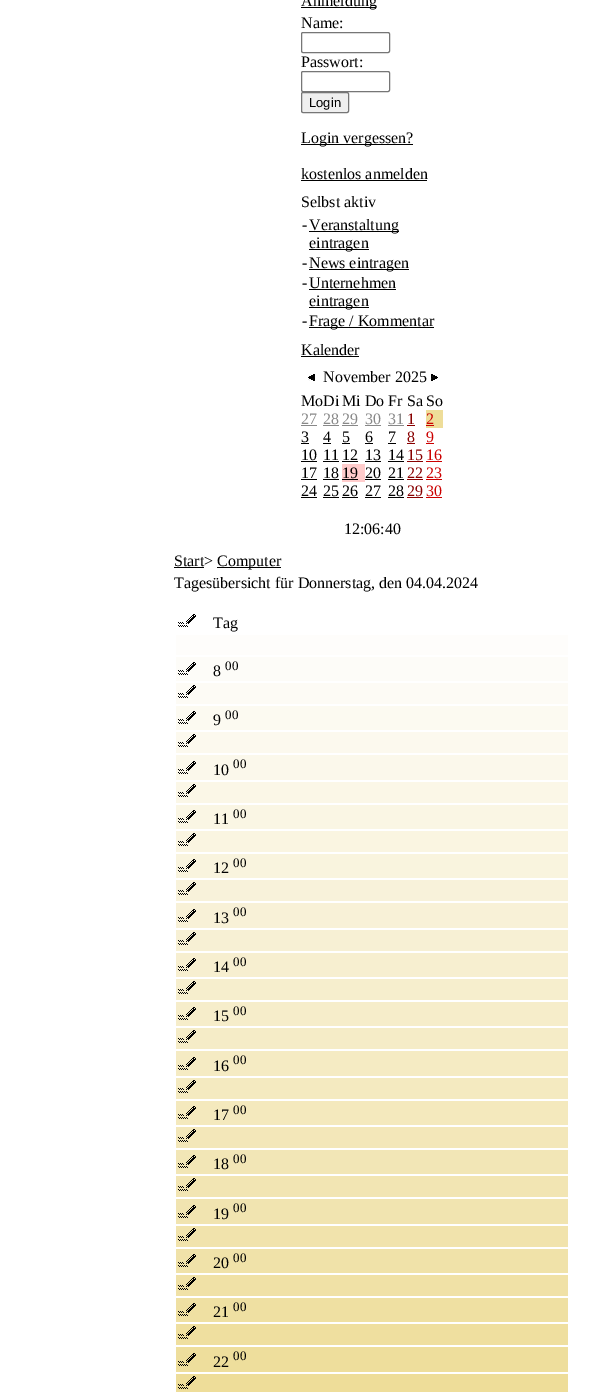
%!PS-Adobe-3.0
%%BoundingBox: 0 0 591 1392
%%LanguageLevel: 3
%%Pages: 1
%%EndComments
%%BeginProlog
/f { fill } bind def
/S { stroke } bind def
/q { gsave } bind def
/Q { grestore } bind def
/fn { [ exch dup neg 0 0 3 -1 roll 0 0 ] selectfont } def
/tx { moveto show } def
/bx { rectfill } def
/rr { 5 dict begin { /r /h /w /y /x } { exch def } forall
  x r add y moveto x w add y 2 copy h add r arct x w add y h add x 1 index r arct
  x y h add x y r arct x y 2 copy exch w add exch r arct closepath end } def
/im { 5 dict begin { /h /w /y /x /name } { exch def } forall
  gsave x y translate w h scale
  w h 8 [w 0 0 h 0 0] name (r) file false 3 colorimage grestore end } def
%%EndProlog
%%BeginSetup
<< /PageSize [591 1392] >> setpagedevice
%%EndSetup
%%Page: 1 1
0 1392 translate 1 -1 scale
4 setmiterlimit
1 setgray
0 0 591 1392 bx
0 setgray
301 7 75 1 bx
/LiberationSerif-Regular 16 fn
(Anmeldung) 301 6 tx
(Name:) 301 28 tx
0.463 setgray
301.5 32.5 88 20 1.5 rr S
0 setgray
(Passwort:) 301 67 tx
0.463 setgray
301.5 71.5 88 20 1.5 rr S
0.937 setgray
301.5 92.5 47 20 1.5 rr q f Q
0.463 setgray
S
/LiberationSans-Regular 13 fn
0 setgray
(Login) 309 107 tx
301 144 112 1 bx
/LiberationSerif-Regular 16 fn
(Login vergessen?) 301 143 tx
(kostenlos anmelden) 301 179 tx
301 180 126 1 bx
(Selbst aktiv) 301 207 tx
(-) 302 230 tx
309 231 90 1 bx
(Veranstaltung) 309 230 tx
309 249 60 1 bx
(eintragen) 309 248 tx
(-) 302 268 tx
309 269 100 1 bx
(News eintragen) 309 268 tx
(-) 302 288 tx
(Unternehmen) 309 288 tx
309 289 87 1 bx
309 307 60 1 bx
(eintragen) 309 306 tx
(-) 302 326 tx
309 327 125 1 bx
(Frage / Kommentar) 309 326 tx
(Kalender) 301 355 tx
301 356 58 1 bx
(image0.raw) 308 374 7 7 im
(November 2025) 323 382 tx
(image1.raw) 431 374 7 7 im
(MoDi) 301 406 tx
(Mi Do Fr) 342 406 tx
(Sa) 407 406 tx
(So) 426 406 tx
0.533 setgray
(27) 301 424 tx
301 425 16 1 bx
(28) 323 424 tx
323 425 16 1 bx
(29) 342 424 tx
342 425 16 1 bx
(30) 365 424 tx
365 425 16 1 bx
(31) 388 424 tx
388 425 16 1 bx
0.533 0 0 setrgbcolor
(1) 407 424 tx
407 425 8 1 bx
0.933 0.867 0.6 setrgbcolor
426 410 17 18 bx
0.8 0 0 setrgbcolor
(2) 426 424 tx
426 425 8 1 bx
0 setgray
(3) 301 442 tx
301 443 8 1 bx
(4) 323 442 tx
323 443 8 1 bx
(5) 342 442 tx
342 443 8 1 bx
(6) 365 442 tx
365 443 8 1 bx
(7) 388 442 tx
388 443 8 1 bx
0.533 0 0 setrgbcolor
(8) 407 442 tx
407 443 8 1 bx
0.8 0 0 setrgbcolor
(9) 426 442 tx
426 443 8 1 bx
0 setgray
(10) 301 460 tx
301 461 16 1 bx
(11) 323 460 tx
323 461 16 1 bx
(12) 342 460 tx
342 461 16 1 bx
(13) 365 460 tx
365 461 16 1 bx
(14) 388 460 tx
388 461 16 1 bx
0.533 0 0 setrgbcolor
(15) 407 460 tx
407 461 16 1 bx
0.8 0 0 setrgbcolor
(16) 426 460 tx
426 461 16 1 bx
0 setgray
(17) 301 478 tx
301 479 16 1 bx
(18) 323 478 tx
323 479 16 1 bx
1 0.8 0.8 setrgbcolor
342 464 23 18 bx
0 setgray
(19) 342 478 tx
342 479 16 1 bx
(20) 365 478 tx
365 479 16 1 bx
(21) 388 478 tx
388 479 16 1 bx
0.533 0 0 setrgbcolor
(22) 407 478 tx
407 479 16 1 bx
0.8 0 0 setrgbcolor
(23) 426 478 tx
426 479 16 1 bx
0 setgray
(24) 301 496 tx
301 497 16 1 bx
(25) 323 496 tx
323 497 16 1 bx
(26) 342 496 tx
342 497 16 1 bx
(27) 365 496 tx
365 497 16 1 bx
(28) 388 496 tx
388 497 16 1 bx
0.533 0 0 setrgbcolor
(29) 407 496 tx
407 497 16 1 bx
0.8 0 0 setrgbcolor
(30) 426 496 tx
426 497 16 1 bx
0 setgray
(12:06:40) 344 534 tx
(Start>) 174 566 tx
174 567 30 1 bx
217 567 64 1 bx
(Computer) 217 566 tx
(Tagesübersicht für Donnerstag, den 04.04.2024) 174 588 tx
(image2.raw) 178 614 18 13 im
(Tag) 213 628 tx
0.996 0.992 0.984 setrgbcolor
176 635 392 20 bx
0.992 0.988 0.973 setrgbcolor
176 657 392 24 bx
(image3.raw) 178 662 18 13 im
0 setgray
(8) 213 676 tx
/LiberationSerif-Regular 13 fn
(00) 225 670 tx
0.992 0.984 0.961 setrgbcolor
176 683 392 21 bx
(image4.raw) 178 685 18 13 im
0.988 0.98 0.945 setrgbcolor
176 706 392 24 bx
(image5.raw) 178 711 18 13 im
/LiberationSerif-Regular 16 fn
0 setgray
(9) 213 725 tx
/LiberationSerif-Regular 13 fn
(00) 225 719 tx
0.988 0.976 0.933 setrgbcolor
176 732 392 21 bx
(image6.raw) 178 734 18 13 im
0.984 0.973 0.922 setrgbcolor
176 755 392 25 bx
(image7.raw) 178 761 18 13 im
/LiberationSerif-Regular 16 fn
0 setgray
(10) 213 775 tx
/LiberationSerif-Regular 13 fn
(00) 233 768 tx
0.984 0.969 0.906 setrgbcolor
176 782 392 21 bx
(image8.raw) 178 784 18 13 im
0.98 0.965 0.894 setrgbcolor
176 805 392 24 bx
(image9.raw) 178 810 18 13 im
/LiberationSerif-Regular 16 fn
0 setgray
(11) 213 824 tx
/LiberationSerif-Regular 13 fn
(00) 233 818 tx
0.98 0.961 0.882 setrgbcolor
176 831 392 21 bx
(image10.raw) 178 833 18 13 im
0.976 0.957 0.871 setrgbcolor
176 854 392 24 bx
(image11.raw) 178 859 18 13 im
/LiberationSerif-Regular 16 fn
0 setgray
(12) 213 873 tx
/LiberationSerif-Regular 13 fn
(00) 233 867 tx
0.973 0.949 0.855 setrgbcolor
176 880 392 21 bx
(image12.raw) 178 882 18 13 im
0.973 0.945 0.843 setrgbcolor
176 903 392 25 bx
(image13.raw) 178 909 18 13 im
/LiberationSerif-Regular 16 fn
0 setgray
(13) 213 923 tx
/LiberationSerif-Regular 13 fn
(00) 233 916 tx
0.969 0.941 0.831 setrgbcolor
176 930 392 21 bx
(image14.raw) 178 932 18 13 im
0.969 0.937 0.816 setrgbcolor
176 953 392 24 bx
(image15.raw) 178 958 18 13 im
/LiberationSerif-Regular 16 fn
0 setgray
(14) 213 972 tx
/LiberationSerif-Regular 13 fn
(00) 233 966 tx
0.965 0.933 0.804 setrgbcolor
176 979 392 21 bx
(image16.raw) 178 981 18 13 im
0.965 0.929 0.792 setrgbcolor
176 1002 392 24 bx
(image17.raw) 178 1007 18 13 im
/LiberationSerif-Regular 16 fn
0 setgray
(15) 213 1021 tx
/LiberationSerif-Regular 13 fn
(00) 233 1015 tx
0.961 0.925 0.78 setrgbcolor
176 1028 392 21 bx
(image18.raw) 178 1030 18 13 im
0.961 0.922 0.765 setrgbcolor
176 1051 392 25 bx
(image19.raw) 178 1057 18 13 im
/LiberationSerif-Regular 16 fn
0 setgray
(16) 213 1071 tx
/LiberationSerif-Regular 13 fn
(00) 233 1064 tx
0.957 0.918 0.753 setrgbcolor
176 1078 392 21 bx
(image20.raw) 178 1080 18 13 im
0.957 0.914 0.741 setrgbcolor
176 1101 392 24 bx
(image21.raw) 178 1106 18 13 im
/LiberationSerif-Regular 16 fn
0 setgray
(17) 213 1120 tx
/LiberationSerif-Regular 13 fn
(00) 233 1114 tx
0.953 0.906 0.725 setrgbcolor
176 1127 392 21 bx
(image22.raw) 178 1129 18 13 im
0.949 0.902 0.714 setrgbcolor
176 1150 392 24 bx
(image23.raw) 178 1155 18 13 im
/LiberationSerif-Regular 16 fn
0 setgray
(18) 213 1169 tx
/LiberationSerif-Regular 13 fn
(00) 233 1163 tx
0.949 0.898 0.702 setrgbcolor
176 1176 392 21 bx
(image24.raw) 178 1178 18 13 im
0.945 0.894 0.69 setrgbcolor
176 1199 392 25 bx
(image25.raw) 178 1205 18 13 im
/LiberationSerif-Regular 16 fn
0 setgray
(19) 213 1219 tx
/LiberationSerif-Regular 13 fn
(00) 233 1212 tx
0.945 0.89 0.675 setrgbcolor
176 1226 392 21 bx
(image26.raw) 178 1228 18 13 im
0.941 0.886 0.663 setrgbcolor
176 1249 392 24 bx
(image27.raw) 178 1254 18 13 im
/LiberationSerif-Regular 16 fn
0 setgray
(20) 213 1268 tx
/LiberationSerif-Regular 13 fn
(00) 233 1262 tx
0.941 0.882 0.651 setrgbcolor
176 1275 392 21 bx
(image28.raw) 178 1277 18 13 im
0.937 0.878 0.635 setrgbcolor
176 1298 392 24 bx
(image29.raw) 178 1303 18 13 im
/LiberationSerif-Regular 16 fn
0 setgray
(21) 213 1317 tx
/LiberationSerif-Regular 13 fn
(00) 233 1311 tx
0.937 0.875 0.624 setrgbcolor
176 1324 392 21 bx
(image30.raw) 178 1326 18 13 im
0.933 0.871 0.612 setrgbcolor
176 1347 392 25 bx
(image31.raw) 178 1353 18 13 im
/LiberationSerif-Regular 16 fn
0 setgray
(22) 213 1367 tx
/LiberationSerif-Regular 13 fn
(00) 233 1360 tx
0.933 0.867 0.6 setrgbcolor
176 1374 392 18 bx
(image32.raw) 178 1376 18 13 im
showpage
%%EOF
